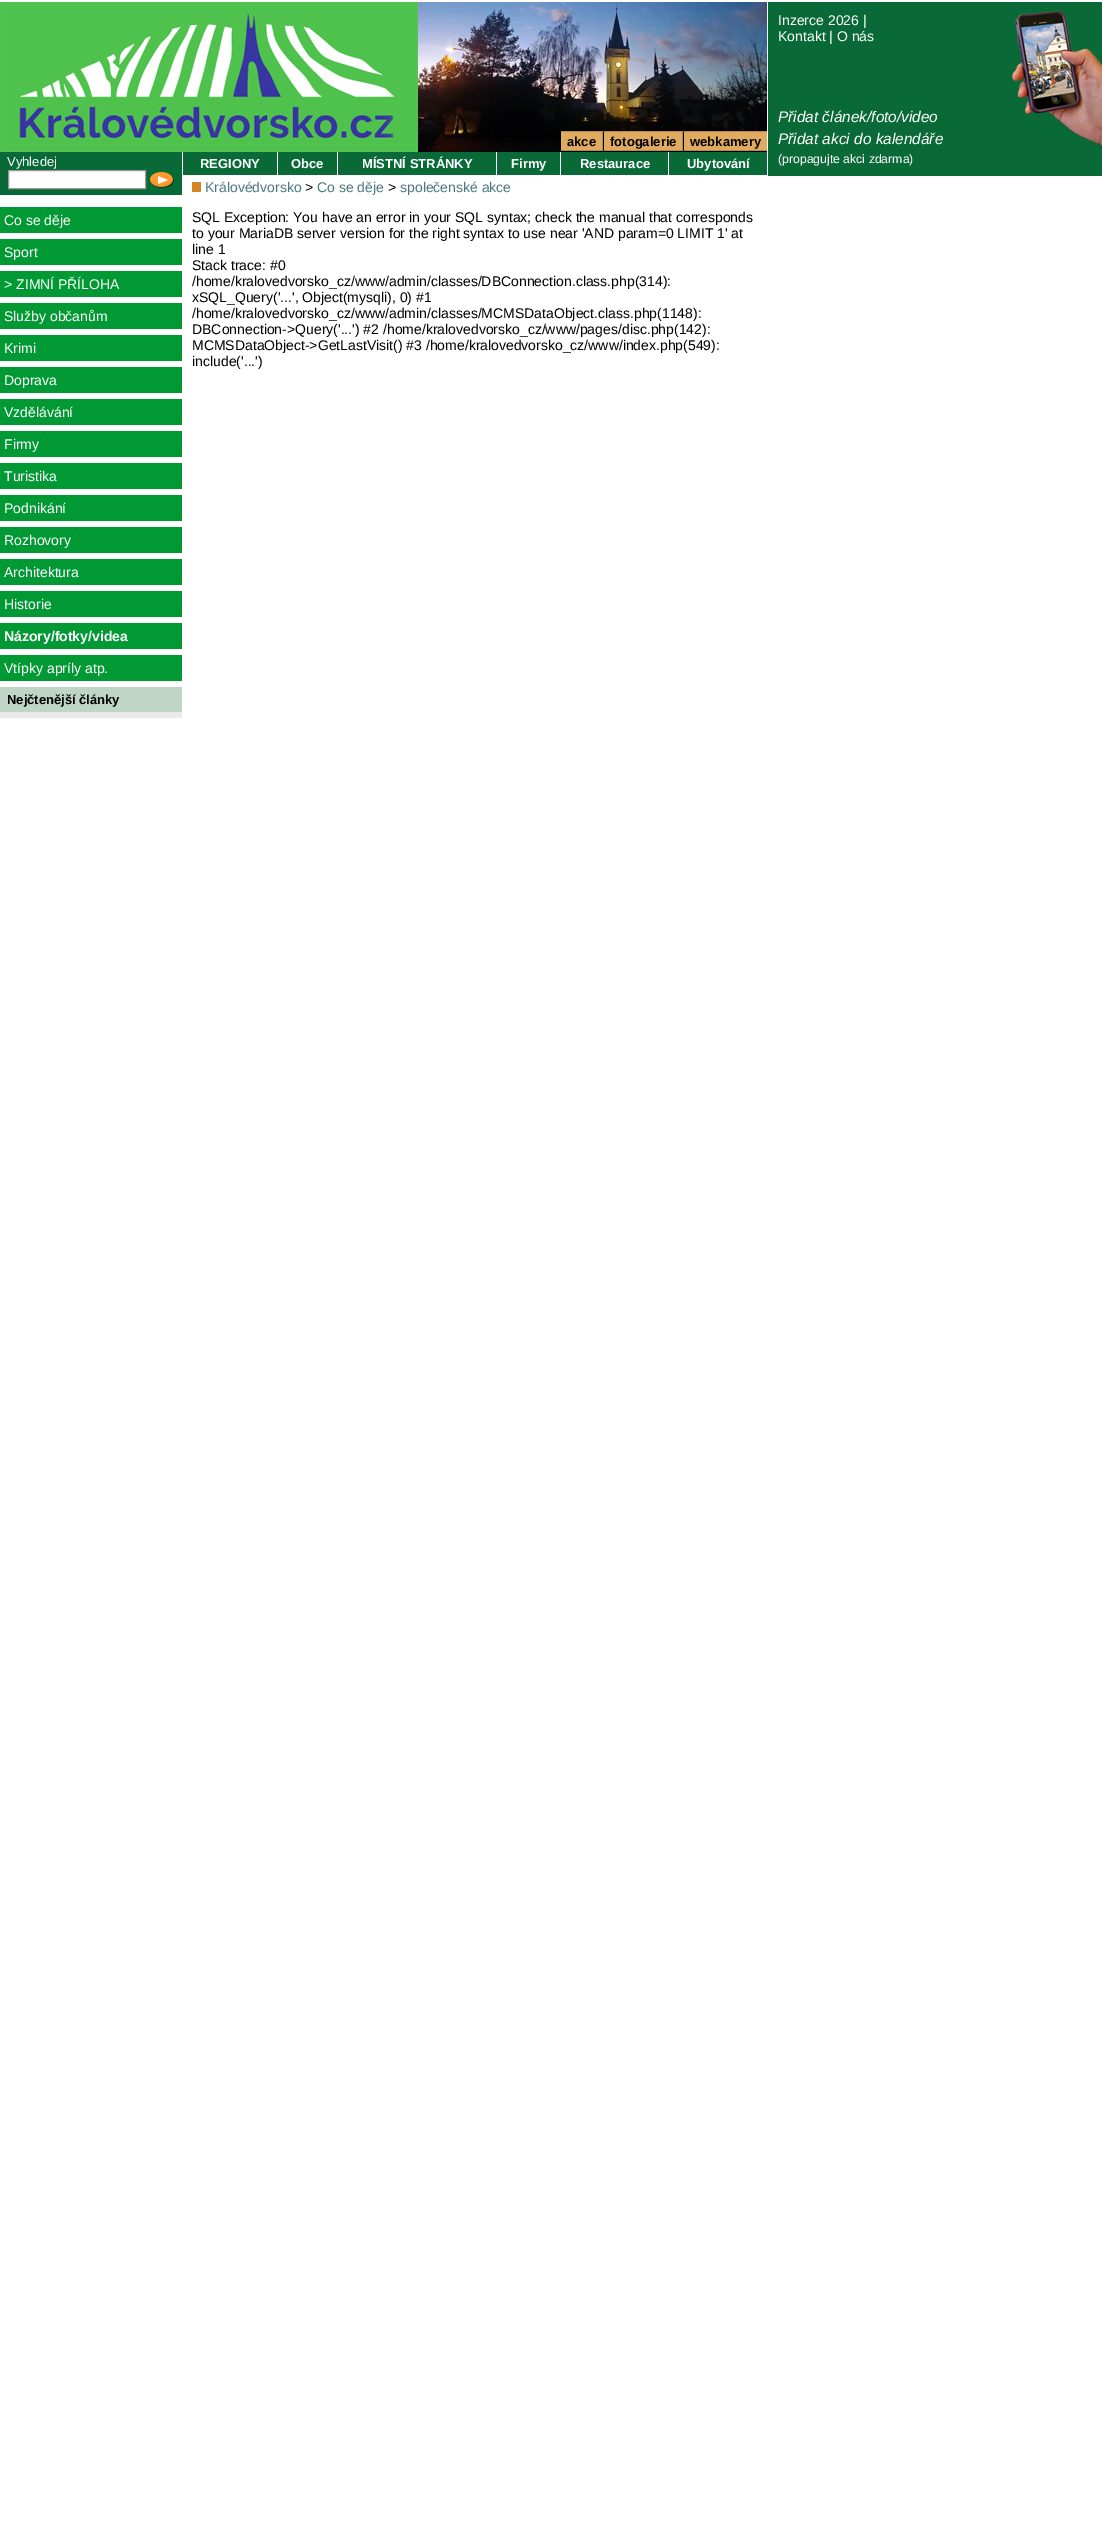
%!PS-Adobe-3.0
%%BoundingBox: 0 0 1102 2528
%%LanguageLevel: 3
%%Pages: 1
%%EndComments
%%BeginProlog
/m { moveto } bind def
/l { lineto } bind def
/h { closepath } bind def
/f { fill } bind def
/S { stroke } bind def
/q { gsave } bind def
/Q { grestore } bind def
/fn { [ exch dup neg 0 0 3 -1 roll 0 0 ] selectfont } def
/tx { moveto show } def
/bx { rectfill } def
/al { dup .setfillconstantalpha .setstrokeconstantalpha } def
/im { 5 dict begin { /h /w /y /x /name } { exch def } forall
  gsave x y translate w h scale
  w h 8 [w 0 0 h 0 0] name (r) file false 3 colorimage grestore end } def
%%EndProlog
%%BeginSetup
<< /PageSize [1102 2528] /PageUsesTransparency true >> setpagedevice
%%EndSetup
%%Page: 1 1
0 .pushpdf14devicefilter
0 2528 translate 1 -1 scale
4 setmiterlimit
1 setgray
0 0 1102 2528 bx
(image0.raw) 0 2 418 150 im
0.035 0.416 0.216 setrgbcolor
0 152 182 43 bx
/LiberationSans-Regular 13 fn
1 setgray
(Vyhledej) 7 166 tx
8.5 170.5 m 145.5 170.5 l 145.5 188.5 l 8.5 188.5 l h q f Q
0.6 setgray
S
(image1.raw) 150 172 24 16 im
0.004 0.6 0.204 setrgbcolor
0 207 182 26 bx
/LiberationSans-Regular 14 fn
1 setgray
(Co se děje) 4 225 tx
0.004 0.6 0.204 setrgbcolor
0 239 182 26 bx
1 setgray
(Sport) 4 257 tx
0.004 0.6 0.204 setrgbcolor
0 271 182 26 bx
1 setgray
(> ZIMNÍ PŘÍLOHA) 4 289 tx
0.004 0.6 0.204 setrgbcolor
0 303 182 26 bx
1 setgray
(Služby občanům) 4 321 tx
0.004 0.6 0.204 setrgbcolor
0 335 182 26 bx
1 setgray
(Krimi) 4 353 tx
0.004 0.6 0.204 setrgbcolor
0 367 182 26 bx
1 setgray
(Doprava) 4 385 tx
0.004 0.6 0.204 setrgbcolor
0 399 182 26 bx
1 setgray
(Vzdělávání) 4 417 tx
0.004 0.6 0.204 setrgbcolor
0 431 182 26 bx
1 setgray
(Firmy) 4 449 tx
0.004 0.6 0.204 setrgbcolor
0 463 182 26 bx
1 setgray
(Turistika) 4 481 tx
0.004 0.6 0.204 setrgbcolor
0 495 182 26 bx
1 setgray
(Podnikání) 4 513 tx
0.004 0.6 0.204 setrgbcolor
0 527 182 26 bx
1 setgray
(Rozhovory) 4 545 tx
0.004 0.6 0.204 setrgbcolor
0 559 182 26 bx
1 setgray
(Architektura) 4 577 tx
0.004 0.6 0.204 setrgbcolor
0 591 182 26 bx
1 setgray
(Historie) 4 609 tx
0.004 0.6 0.204 setrgbcolor
0 623 182 26 bx
/LiberationSans-Bold 14 fn
1 setgray
(Názory/fotky/videa) 4 641 tx
0.004 0.6 0.204 setrgbcolor
0 655 182 26 bx
/LiberationSans-Regular 14 fn
1 setgray
(Vtípky apríly atp.) 4 673 tx
0.749 0.839 0.776 setrgbcolor
0 687 182 25 bx
/LiberationSans-Bold 13 fn
0 setgray
(Nejčtenější články) 7 704 tx
0.918 setgray
0 712 182 6 bx
(image2.raw) 418 2 349 150 im
0 setgray
561 151 206 1 bx
0.882 0.671 0.373 setrgbcolor
561 131 206 20 bx
0.706 0.537 0.298 setrgbcolor
561 131 m 603 131 l 602 132 l 561 132 l h f
0.2 al
0 setgray
603 131 m 603 151 l 602 150 l 602 132 l h f
603 151 m 561 151 l 561 150 l 602 150 l h f
1 al
(akce) 567 146 tx
0.706 0.537 0.298 setrgbcolor
603 131 m 683 131 l 682 132 l 604 132 l h f
0.2 al
0 setgray
683 131 m 683 151 l 682 150 l 682 132 l h f
683 151 m 603 151 l 604 150 l 682 150 l h f
1 al
603 151 m 603 131 l 604 132 l 604 150 l h f
(fotogalerie) 610 146 tx
0.706 0.537 0.298 setrgbcolor
683 131 m 767 131 l 767 132 l 684 132 l h f
767 151 m 683 151 l 684 150 l 767 150 l h f
0 setgray
683 151 m 683 131 l 684 132 l 684 150 l h f
(webkamery) 690 146 tx
0.035 0.416 0.216 setrgbcolor
183 152 94 23 bx
1 setgray
(REGIONY) 200 168 tx
0.035 0.416 0.216 setrgbcolor
278 152 59 23 bx
1 setgray
(Obce) 291 168 tx
0.035 0.416 0.216 setrgbcolor
338 152 158 23 bx
1 setgray
(MÍSTNÍ STRÁNKY) 362 168 tx
0.035 0.416 0.216 setrgbcolor
497 152 63 23 bx
1 setgray
(Firmy) 511 168 tx
0.035 0.416 0.216 setrgbcolor
561 152 107 23 bx
1 setgray
(Restaurace) 580 168 tx
0.035 0.416 0.216 setrgbcolor
669 152 98 23 bx
1 setgray
(Ubytování) 687 168 tx
0.035 0.416 0.216 setrgbcolor
768 2 334 174 bx
(image3.raw) 1011 10 91 136 im
/LiberationSans-Regular 14 fn
1 setgray
(Inzerce 2026 |) 778 25 tx
(Kontakt | O nás) 778 41 tx
/LiberationSans-Italic 15.4 fn
(Přidat článek/foto/video) 778 122 tx
(Přidat akci do kalendáře) 778 144 tx
/LiberationSans-Regular 12.25 fn
(\(propagujte akci zdarma\)) 778 163 tx
/LiberationSans-Regular 14 fn
0.294 0.467 0.498 setrgbcolor
(Královédvorsko) 205 192 tx
0.831 0.525 0.145 setrgbcolor
192 182 9 10 bx
0 setgray
(>) 305 192 tx
0.294 0.467 0.498 setrgbcolor
(Co se děje) 317 192 tx
0 setgray
(>) 388 192 tx
0.294 0.467 0.498 setrgbcolor
(společenské akce) 400 192 tx
0 setgray
(SQL Exception: You have an error in your SQL syntax; check the manual that corresponds) 192 222 tx
(to your MariaDB server version for the right syntax to use near 'AND param=0 LIMIT 1' at) 192 238 tx
(line 1) 192 254 tx
(Stack trace: #0) 192 270 tx
(/home/kralovedvorsko_cz/www/admin/classes/DBConnection.class.php\(314\):) 192 286 tx
(xSQL_Query\('...', Object\(mysqli\), 0\) #1) 192 302 tx
(/home/kralovedvorsko_cz/www/admin/classes/MCMSDataObject.class.php\(1148\):) 192 318 tx
(DBConnection->Query\('...'\) #2 /home/kralovedvorsko_cz/www/pages/disc.php\(142\):) 192 334 tx
(MCMSDataObject->GetLastVisit\(\) #3 /home/kralovedvorsko_cz/www/index.php\(549\):) 192 350 tx
(include\('...'\)) 192 366 tx
.poppdf14devicefilter showpage
%%EOF
